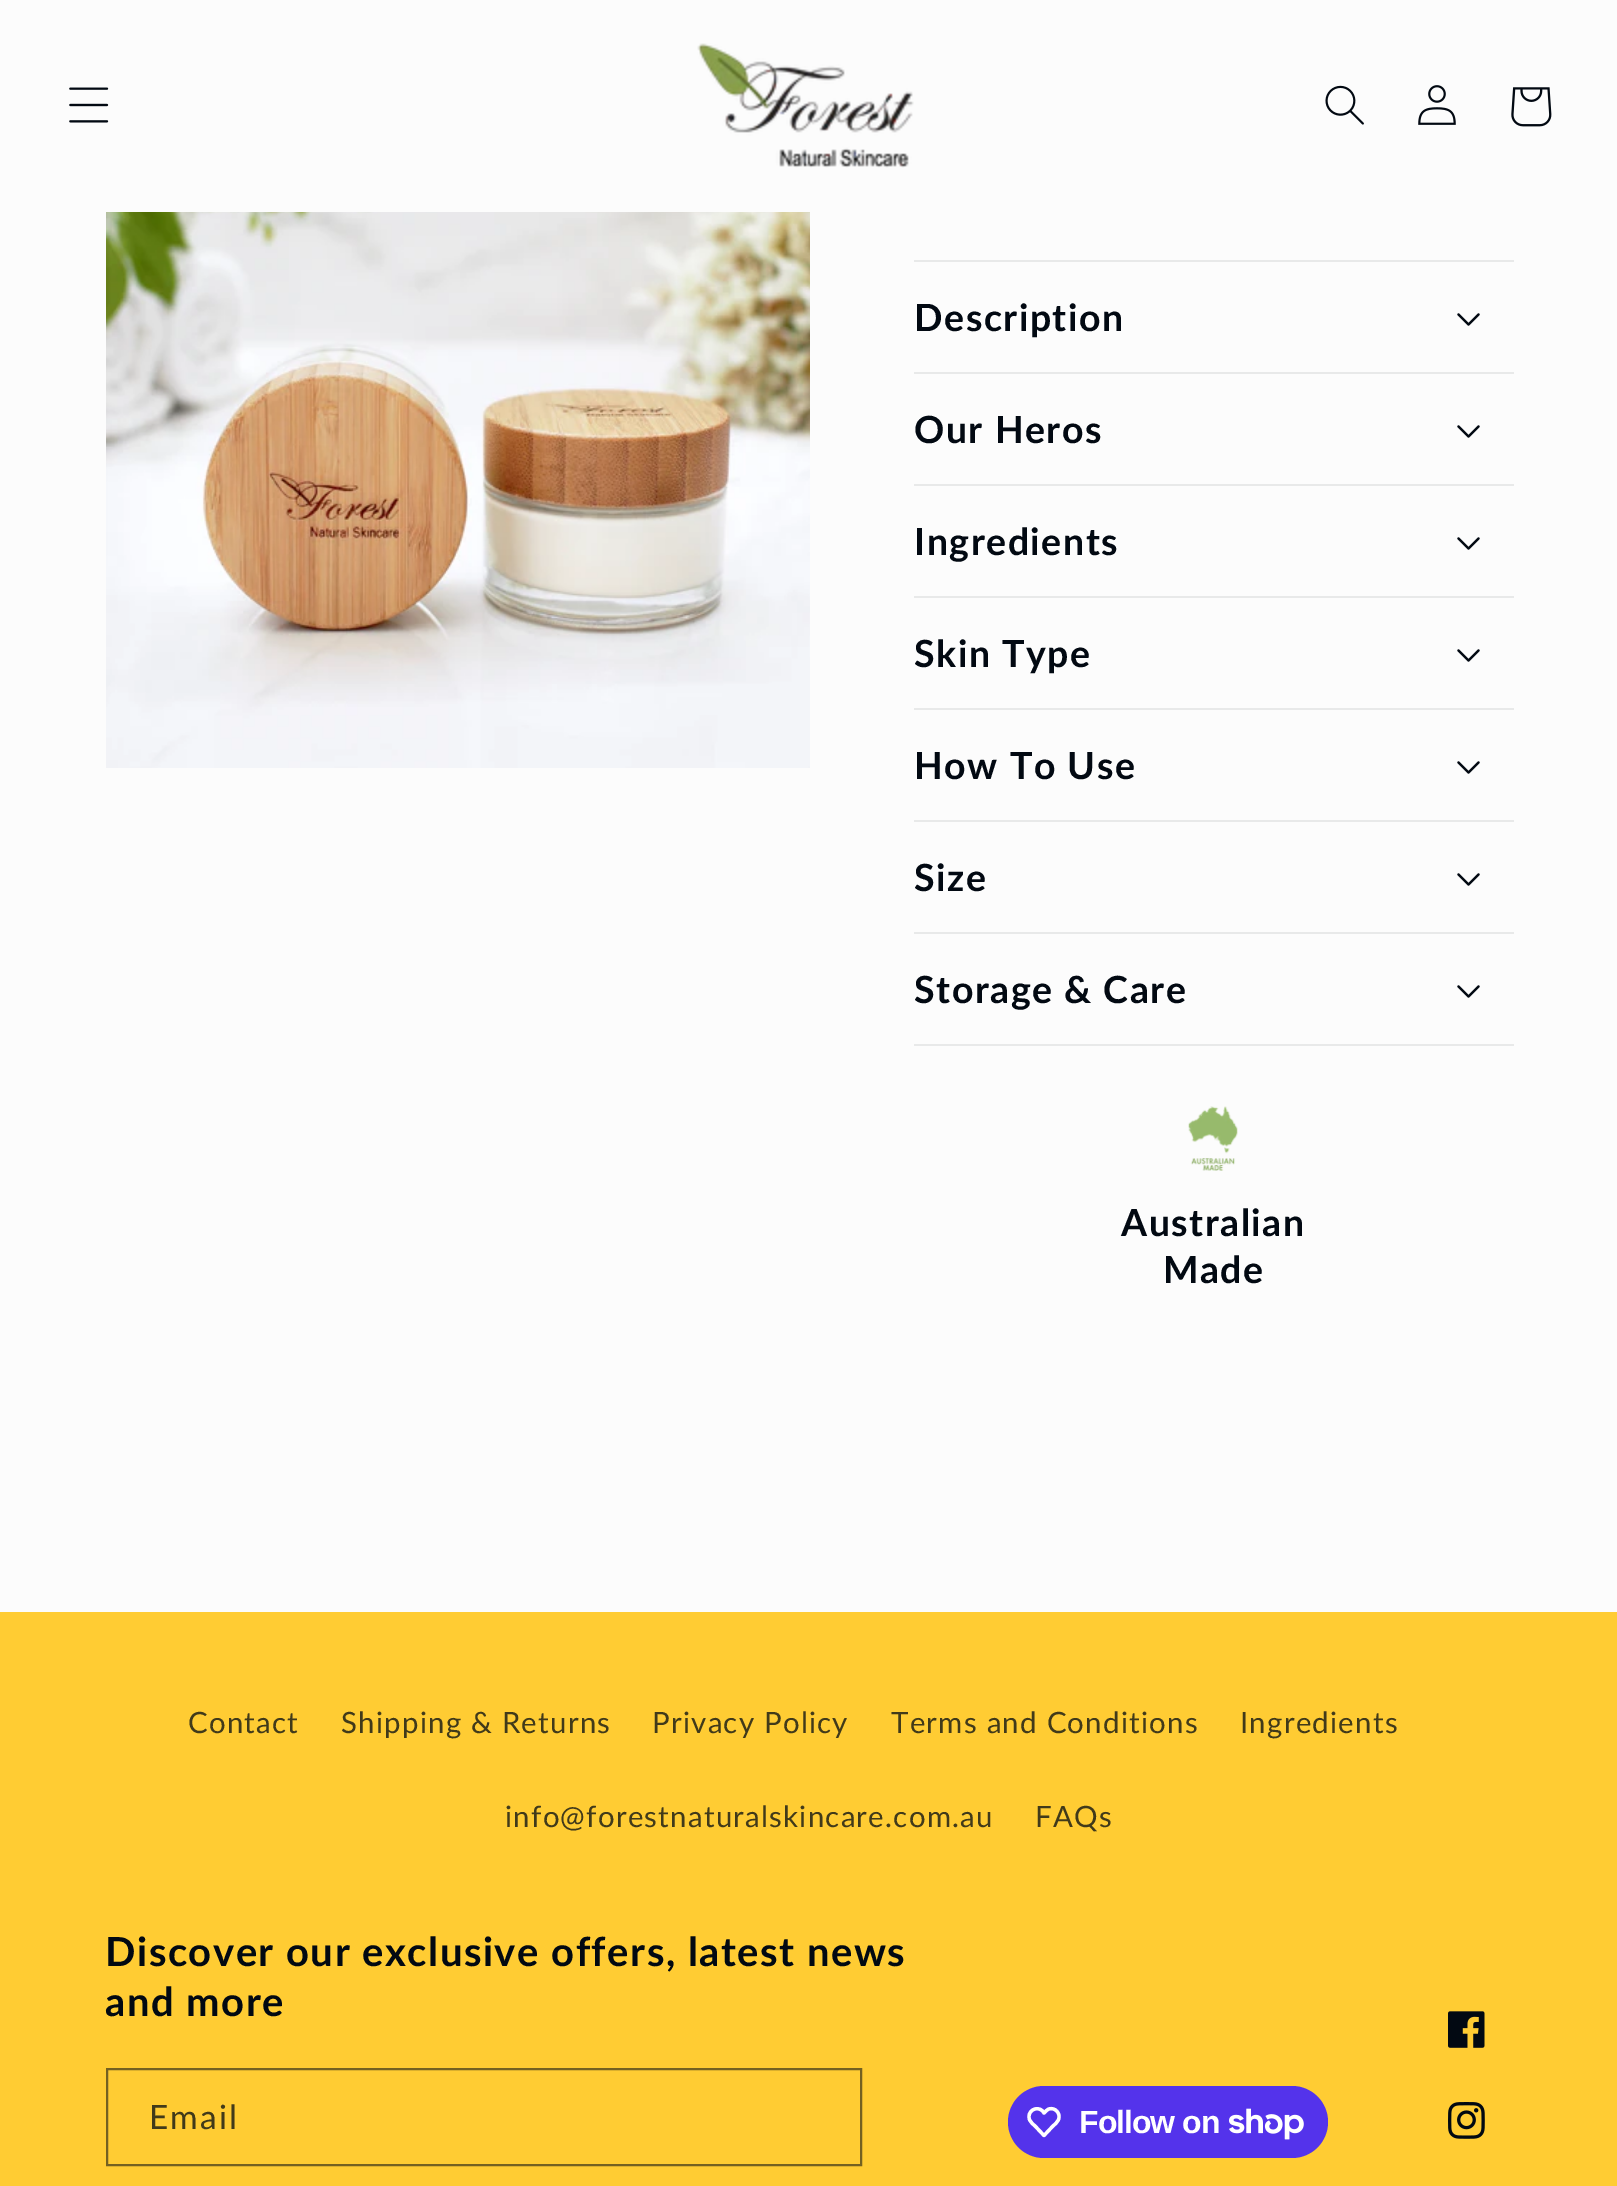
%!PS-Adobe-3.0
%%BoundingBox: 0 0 1617 2186
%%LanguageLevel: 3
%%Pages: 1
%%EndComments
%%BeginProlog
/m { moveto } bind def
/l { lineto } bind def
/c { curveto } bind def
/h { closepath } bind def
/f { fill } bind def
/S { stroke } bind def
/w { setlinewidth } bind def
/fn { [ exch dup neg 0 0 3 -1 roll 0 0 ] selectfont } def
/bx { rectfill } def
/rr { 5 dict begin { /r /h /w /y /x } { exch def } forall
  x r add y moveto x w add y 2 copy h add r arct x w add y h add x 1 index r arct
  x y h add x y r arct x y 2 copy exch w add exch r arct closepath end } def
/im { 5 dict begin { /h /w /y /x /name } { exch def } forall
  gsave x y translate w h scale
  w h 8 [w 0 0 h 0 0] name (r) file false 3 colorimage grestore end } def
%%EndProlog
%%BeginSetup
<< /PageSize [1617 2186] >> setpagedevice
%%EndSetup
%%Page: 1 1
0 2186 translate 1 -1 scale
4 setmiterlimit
0.988 setgray
0 0 1617 2186 bx
(image0.raw) 69 87 40 36 im
(image1.raw) 697 43 217 125 im
(image2.raw) 1325 85 39 40 im
(image3.raw) 1418 85 38 40 im
(image4.raw) 1511 87 41 40 im
(image5.raw) 106 212 704 556 im
0.91 0.914 0.914 setrgbcolor
914 260 600 2 bx
914 372 600 2 bx
/Lato-Bold 37.5 fn
0.008 0.035 0.071 setrgbcolor
914 331 m 1.5 0 (Description) ashow
(image6.raw) 1457 313 23 13 im
0.91 0.914 0.914 setrgbcolor
914 484 600 2 bx
0.008 0.035 0.071 setrgbcolor
914 443 m 1.5 0 (Our Heros) ashow
(image6.raw) 1457 425 23 13 im
0.91 0.914 0.914 setrgbcolor
914 596 600 2 bx
0.008 0.035 0.071 setrgbcolor
914 555 m 1.5 0 (Ingredients) ashow
(image6.raw) 1457 537 23 13 im
0.91 0.914 0.914 setrgbcolor
914 708 600 2 bx
0.008 0.035 0.071 setrgbcolor
914 667 m 1.5 0 (Skin Type) ashow
(image6.raw) 1457 649 23 13 im
0.91 0.914 0.914 setrgbcolor
914 820 600 2 bx
0.008 0.035 0.071 setrgbcolor
914 779 m 1.5 0 (How To Use) ashow
(image6.raw) 1457 761 23 13 im
0.91 0.914 0.914 setrgbcolor
914 932 600 2 bx
0.008 0.035 0.071 setrgbcolor
914 891 m 1.5 0 (Size) ashow
(image6.raw) 1457 873 23 13 im
0.91 0.914 0.914 setrgbcolor
914 1044 600 2 bx
0.008 0.035 0.071 setrgbcolor
914 1003 m 1.5 0 (Storage & Care) ashow
(image6.raw) 1457 985 23 13 im
(image7.raw) 1188 1106 50 65 im
1121 1236 m 1.5 0 (Australian) ashow
1163 1283 m 1.5 0 (Made) ashow
1 0.8 0.2 setrgbcolor
0 1612 1617 574 bx
/Lato-Regular 29.4 fn
0.255 0.227 0.102 setrgbcolor
188 1733 m 1.25 0 (Contact) ashow
341 1733 m 1.25 0 (Shipping & Returns) ashow
652 1733 m 1.25 0 (Privacy Policy) ashow
891 1733 m 1.25 0 (Terms and Conditions) ashow
1240 1733 m 1.25 0 (Ingredients) ashow
505 1827 m 1.25 0 (info@forestnaturalskincare.com.au) ashow
1035 1827 m 1.25 0 (FAQs) ashow
/Lato-Bold 40 fn
0.008 0.035 0.071 setrgbcolor
105 1966 m 1.5 0 (Discover our exclusive offers, latest news) ashow
105 2016 m 1.5 0 (and more) ashow
0.455 0.38 0.129 setrgbcolor
2 w
107 2069 754 96 rectstroke
/Lato-Regular 33.5 fn
0.255 0.227 0.102 setrgbcolor
149 2129 m 2 0 (Email) ashow
0.329 0.2 0.922 setrgbcolor
1008 2086 320 72 36 rr f
1 setgray
3.3 w
1 setlinejoin
1042.5 2111 m 1044 2113 l 1045.5 2111.5 1047 2109.5 1049 2109 c 1055 2107 1061 2113.5 1058.5 2119.5 c 1057.5 2122.5 1054.5 2124.5 1052.5 2126.5 c 1044 2135.5 l 1035.5 2126.5 l 1033.5 2124.5 1030.5 2122.5 1029.5 2119.5 c 1026.5 2111.5 1036.5 2105 1042.5 2111 c h S
/LiberationSans-Bold 32 fn
1079 2133 m -1 0 (Follow on) ashow
(image8.raw) 1229 2108 75 32 im
(image9.raw) 1448 2011 37 37 im
(image10.raw) 1448 2102 37 37 im
showpage
%%EOF
